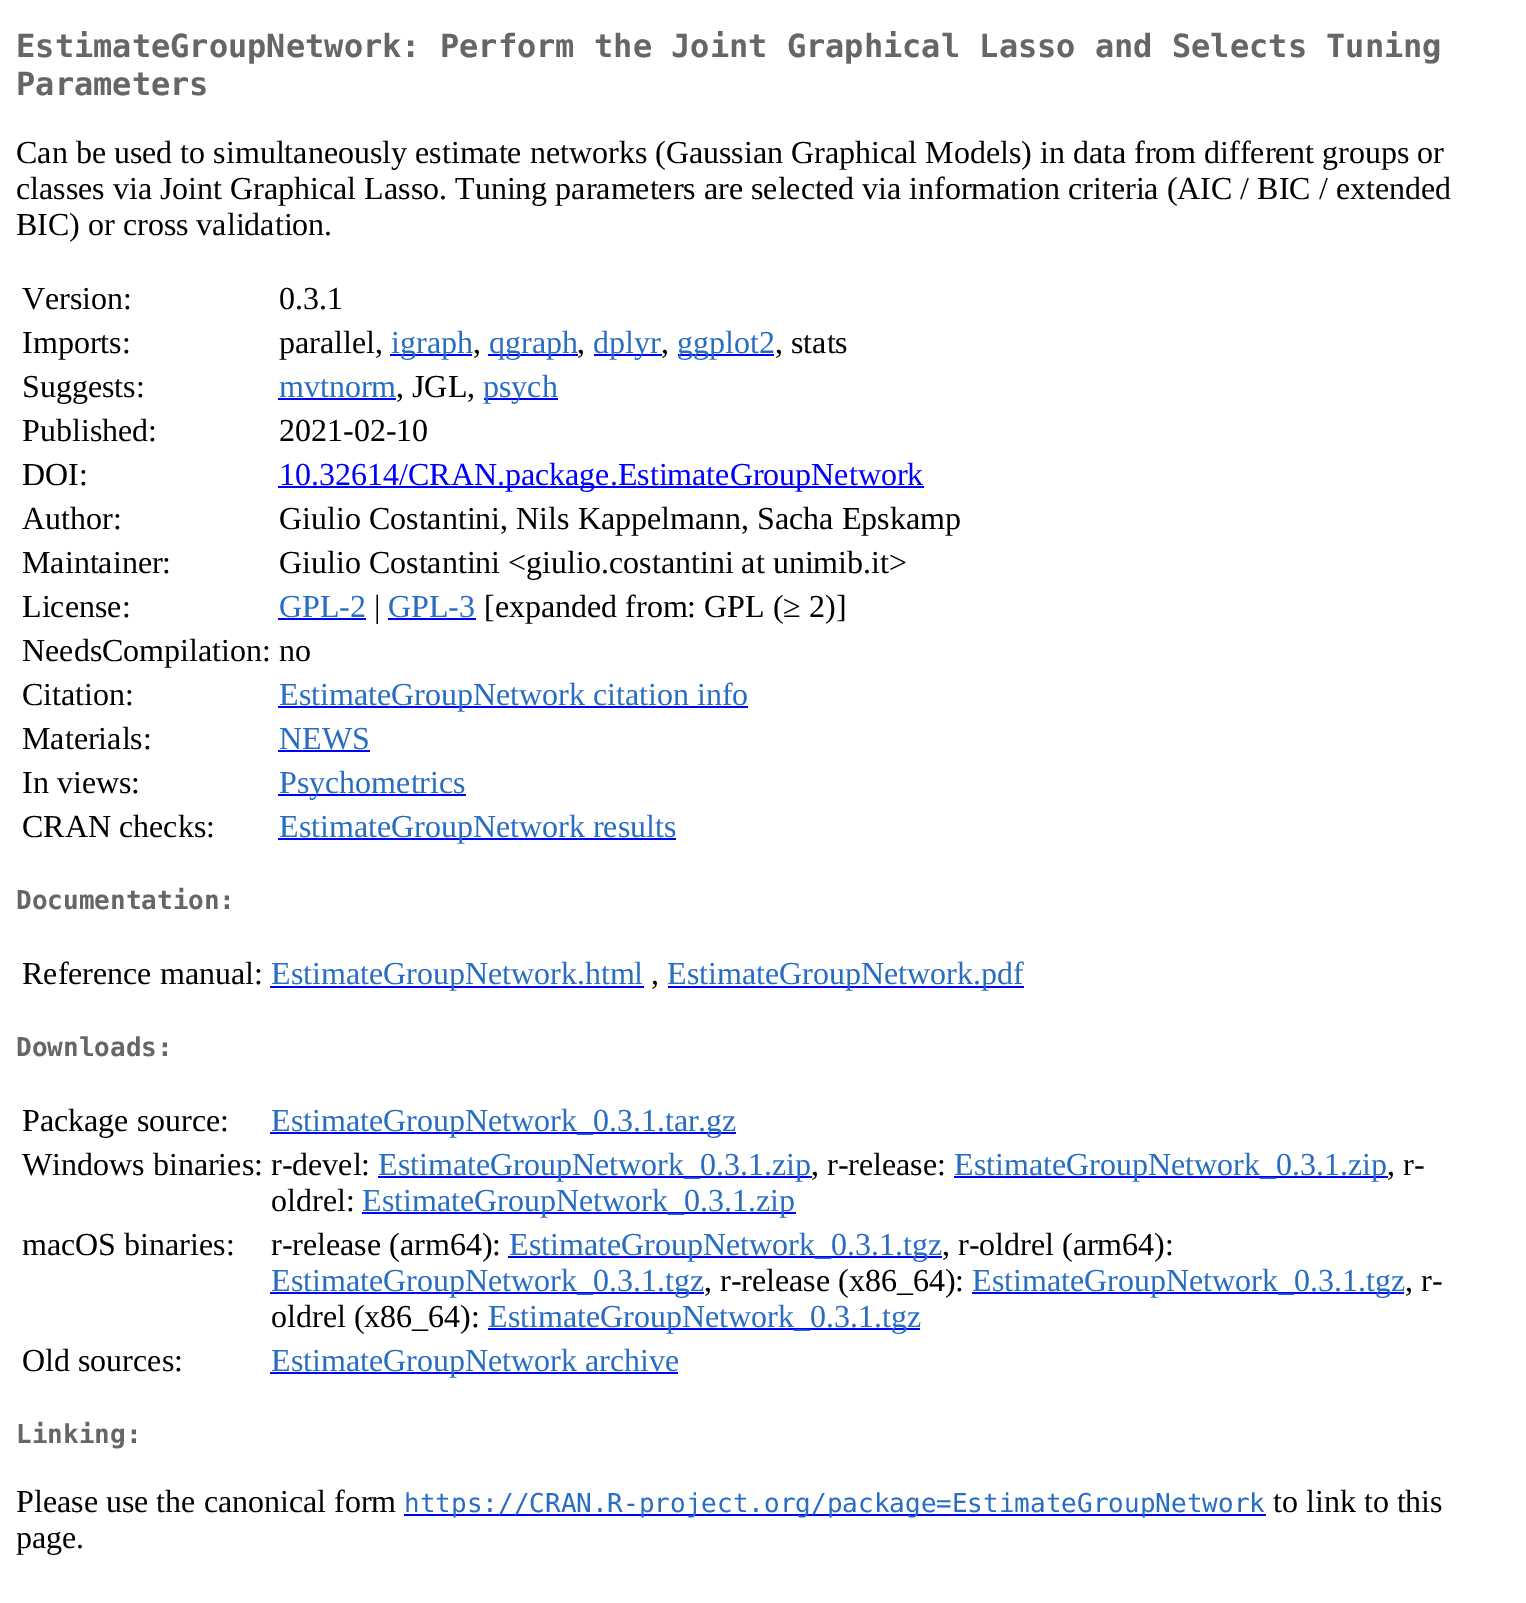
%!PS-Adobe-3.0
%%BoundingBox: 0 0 1526 1603
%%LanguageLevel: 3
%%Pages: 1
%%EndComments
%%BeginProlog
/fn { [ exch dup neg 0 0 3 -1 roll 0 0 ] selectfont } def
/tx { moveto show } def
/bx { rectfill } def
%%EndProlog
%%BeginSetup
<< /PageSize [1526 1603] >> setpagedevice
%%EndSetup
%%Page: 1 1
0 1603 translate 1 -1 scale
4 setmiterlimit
1 setgray
0 0 1526 1603 bx
/DejaVuSansMono-Bold 32 fn
0.4 setgray
(EstimateGroupNetwork: Perform the Joint Graphical Lasso and Selects Tuning) 16 57 tx
(Parameters) 16 95 tx
/LiberationSerif-Regular 32 fn
0 setgray
(Can be used to simultaneously estimate networks \(Gaussian Graphical Models\) in data from different groups or) 16 163 tx
(classes via Joint Graphical Lasso. Tuning parameters are selected via information criteria \(AIC / BIC / extended) 16 199 tx
(BIC\) or cross validation.) 16 235 tx
(Version:) 22 309 tx
(0.3.1) 279 309 tx
(Imports:) 22 353 tx
(parallel,) 279 353 tx
0 0 1 setrgbcolor
390 354 82 2 bx
0.153 0.427 0.765 setrgbcolor
(igraph) 391 353 tx
0 setgray
(,) 473 353 tx
0 0 1 setrgbcolor
488 354 90 2 bx
0.153 0.427 0.765 setrgbcolor
(qgraph) 489 353 tx
0 setgray
(,) 577 353 tx
0 0 1 setrgbcolor
594 354 68 2 bx
0.153 0.427 0.765 setrgbcolor
(dplyr) 593 353 tx
0 setgray
(,) 661 353 tx
0 0 1 setrgbcolor
678 354 96 2 bx
0.153 0.427 0.765 setrgbcolor
(ggplot2) 677 353 tx
0 setgray
(, stats) 775 353 tx
(Suggests:) 22 397 tx
0.153 0.427 0.765 setrgbcolor
(mvtnorm) 279 397 tx
0 0 1 setrgbcolor
278 398 118 2 bx
0 setgray
(, JGL,) 396 397 tx
0 0 1 setrgbcolor
484 398 74 2 bx
0.153 0.427 0.765 setrgbcolor
(psych) 483 397 tx
0 setgray
(Published:) 22 441 tx
(2021-02-10) 279 441 tx
(DOI:) 22 485 tx
0 0 1 setrgbcolor
278 486 646 2 bx
(10.32614/CRAN.package.EstimateGroupNetwork) 279 485 tx
0 setgray
(Author:) 22 529 tx
(Giulio Costantini, Nils Kappelmann, Sacha Epskamp) 279 529 tx
(Maintainer:) 22 573 tx
(Giulio Costantini <giulio.costantini at unimib.it>) 279 573 tx
(License:) 22 617 tx
0.153 0.427 0.765 setrgbcolor
(GPL-2) 279 617 tx
0 0 1 setrgbcolor
278 618 88 2 bx
0 setgray
(|) 374 617 tx
0.153 0.427 0.765 setrgbcolor
(GPL-3) 388 617 tx
0 0 1 setrgbcolor
388 618 88 2 bx
0 setgray
([expanded from: GPL \(≥ 2\)]) 484 617 tx
(NeedsCompilation: no) 22 661 tx
(Citation:) 22 705 tx
0 0 1 setrgbcolor
278 706 470 2 bx
0.153 0.427 0.765 setrgbcolor
(EstimateGroupNetwork citation info) 279 705 tx
0 setgray
(Materials:) 22 749 tx
0.153 0.427 0.765 setrgbcolor
(NEWS) 279 749 tx
0 0 1 setrgbcolor
278 750 92 2 bx
0 setgray
(In views:) 22 793 tx
0 0 1 setrgbcolor
278 794 188 2 bx
0.153 0.427 0.765 setrgbcolor
(Psychometrics) 279 793 tx
0 setgray
(CRAN checks:) 22 837 tx
0 0 1 setrgbcolor
278 838 398 2 bx
0.153 0.427 0.765 setrgbcolor
(EstimateGroupNetwork results) 279 837 tx
/DejaVuSansMono-Bold 26 fn
0.4 setgray
(Documentation:) 16 909 tx
/LiberationSerif-Regular 32 fn
0 setgray
(Reference manual:) 22 984 tx
0 0 1 setrgbcolor
270 986 374 2 bx
0.153 0.427 0.765 setrgbcolor
(EstimateGroupNetwork.html) 271 984 tx
0 setgray
(,) 651 984 tx
0 0 1 setrgbcolor
668 986 356 2 bx
0.153 0.427 0.765 setrgbcolor
(EstimateGroupNetwork.pdf) 667 984 tx
/DejaVuSansMono-Bold 26 fn
0.4 setgray
(Downloads:) 16 1056 tx
/LiberationSerif-Regular 32 fn
0 setgray
(Package source:) 22 1131 tx
0 0 1 setrgbcolor
270 1132 466 2 bx
0.153 0.427 0.765 setrgbcolor
(EstimateGroupNetwork_0.3.1.tar.gz) 271 1131 tx
0 setgray
(Windows binaries: r-devel:) 22 1175 tx
0 0 1 setrgbcolor
378 1176 434 2 bx
0.153 0.427 0.765 setrgbcolor
(EstimateGroupNetwork_0.3.1.zip) 378 1175 tx
0 setgray
(, r-release:) 811 1175 tx
0 0 1 setrgbcolor
954 1176 434 2 bx
0.153 0.427 0.765 setrgbcolor
(EstimateGroupNetwork_0.3.1.zip) 954 1175 tx
0 setgray
(, r-) 1387 1175 tx
(oldrel:) 271 1211 tx
0 0 1 setrgbcolor
362 1212 434 2 bx
0.153 0.427 0.765 setrgbcolor
(EstimateGroupNetwork_0.3.1.zip) 362 1211 tx
0 setgray
(macOS binaries:) 22 1255 tx
(r-release \(arm64\):) 271 1255 tx
0 0 1 setrgbcolor
508 1256 434 2 bx
0.153 0.427 0.765 setrgbcolor
(EstimateGroupNetwork_0.3.1.tgz) 509 1255 tx
0 setgray
(, r-oldrel \(arm64\):) 942 1255 tx
0 0 1 setrgbcolor
270 1292 434 2 bx
0.153 0.427 0.765 setrgbcolor
(EstimateGroupNetwork_0.3.1.tgz) 271 1291 tx
0 setgray
(, r-release \(x86_64\):) 704 1291 tx
0 0 1 setrgbcolor
972 1292 432 2 bx
0.153 0.427 0.765 setrgbcolor
(EstimateGroupNetwork_0.3.1.tgz) 972 1291 tx
0 setgray
(, r-) 1405 1291 tx
(oldrel \(x86_64\):) 271 1327 tx
0 0 1 setrgbcolor
488 1328 432 2 bx
0.153 0.427 0.765 setrgbcolor
(EstimateGroupNetwork_0.3.1.tgz) 488 1327 tx
0 setgray
(Old sources:) 22 1371 tx
0 0 1 setrgbcolor
270 1372 408 2 bx
0.153 0.427 0.765 setrgbcolor
(EstimateGroupNetwork archive) 271 1371 tx
/DejaVuSansMono-Bold 26 fn
0.4 setgray
(Linking:) 16 1443 tx
/LiberationSerif-Regular 32 fn
0 setgray
(Please use the canonical form) 16 1512 tx
0 0 1 setrgbcolor
404 1514 862 2 bx
/DejaVuSansMono-Regular 26 fn
0.153 0.427 0.765 setrgbcolor
(https://CRAN.R-project.org/package=EstimateGroupNetwork) 404 1512 tx
/LiberationSerif-Regular 32 fn
0 setgray
(to link to this) 1273 1512 tx
(page.) 16 1548 tx
showpage
%%EOF
